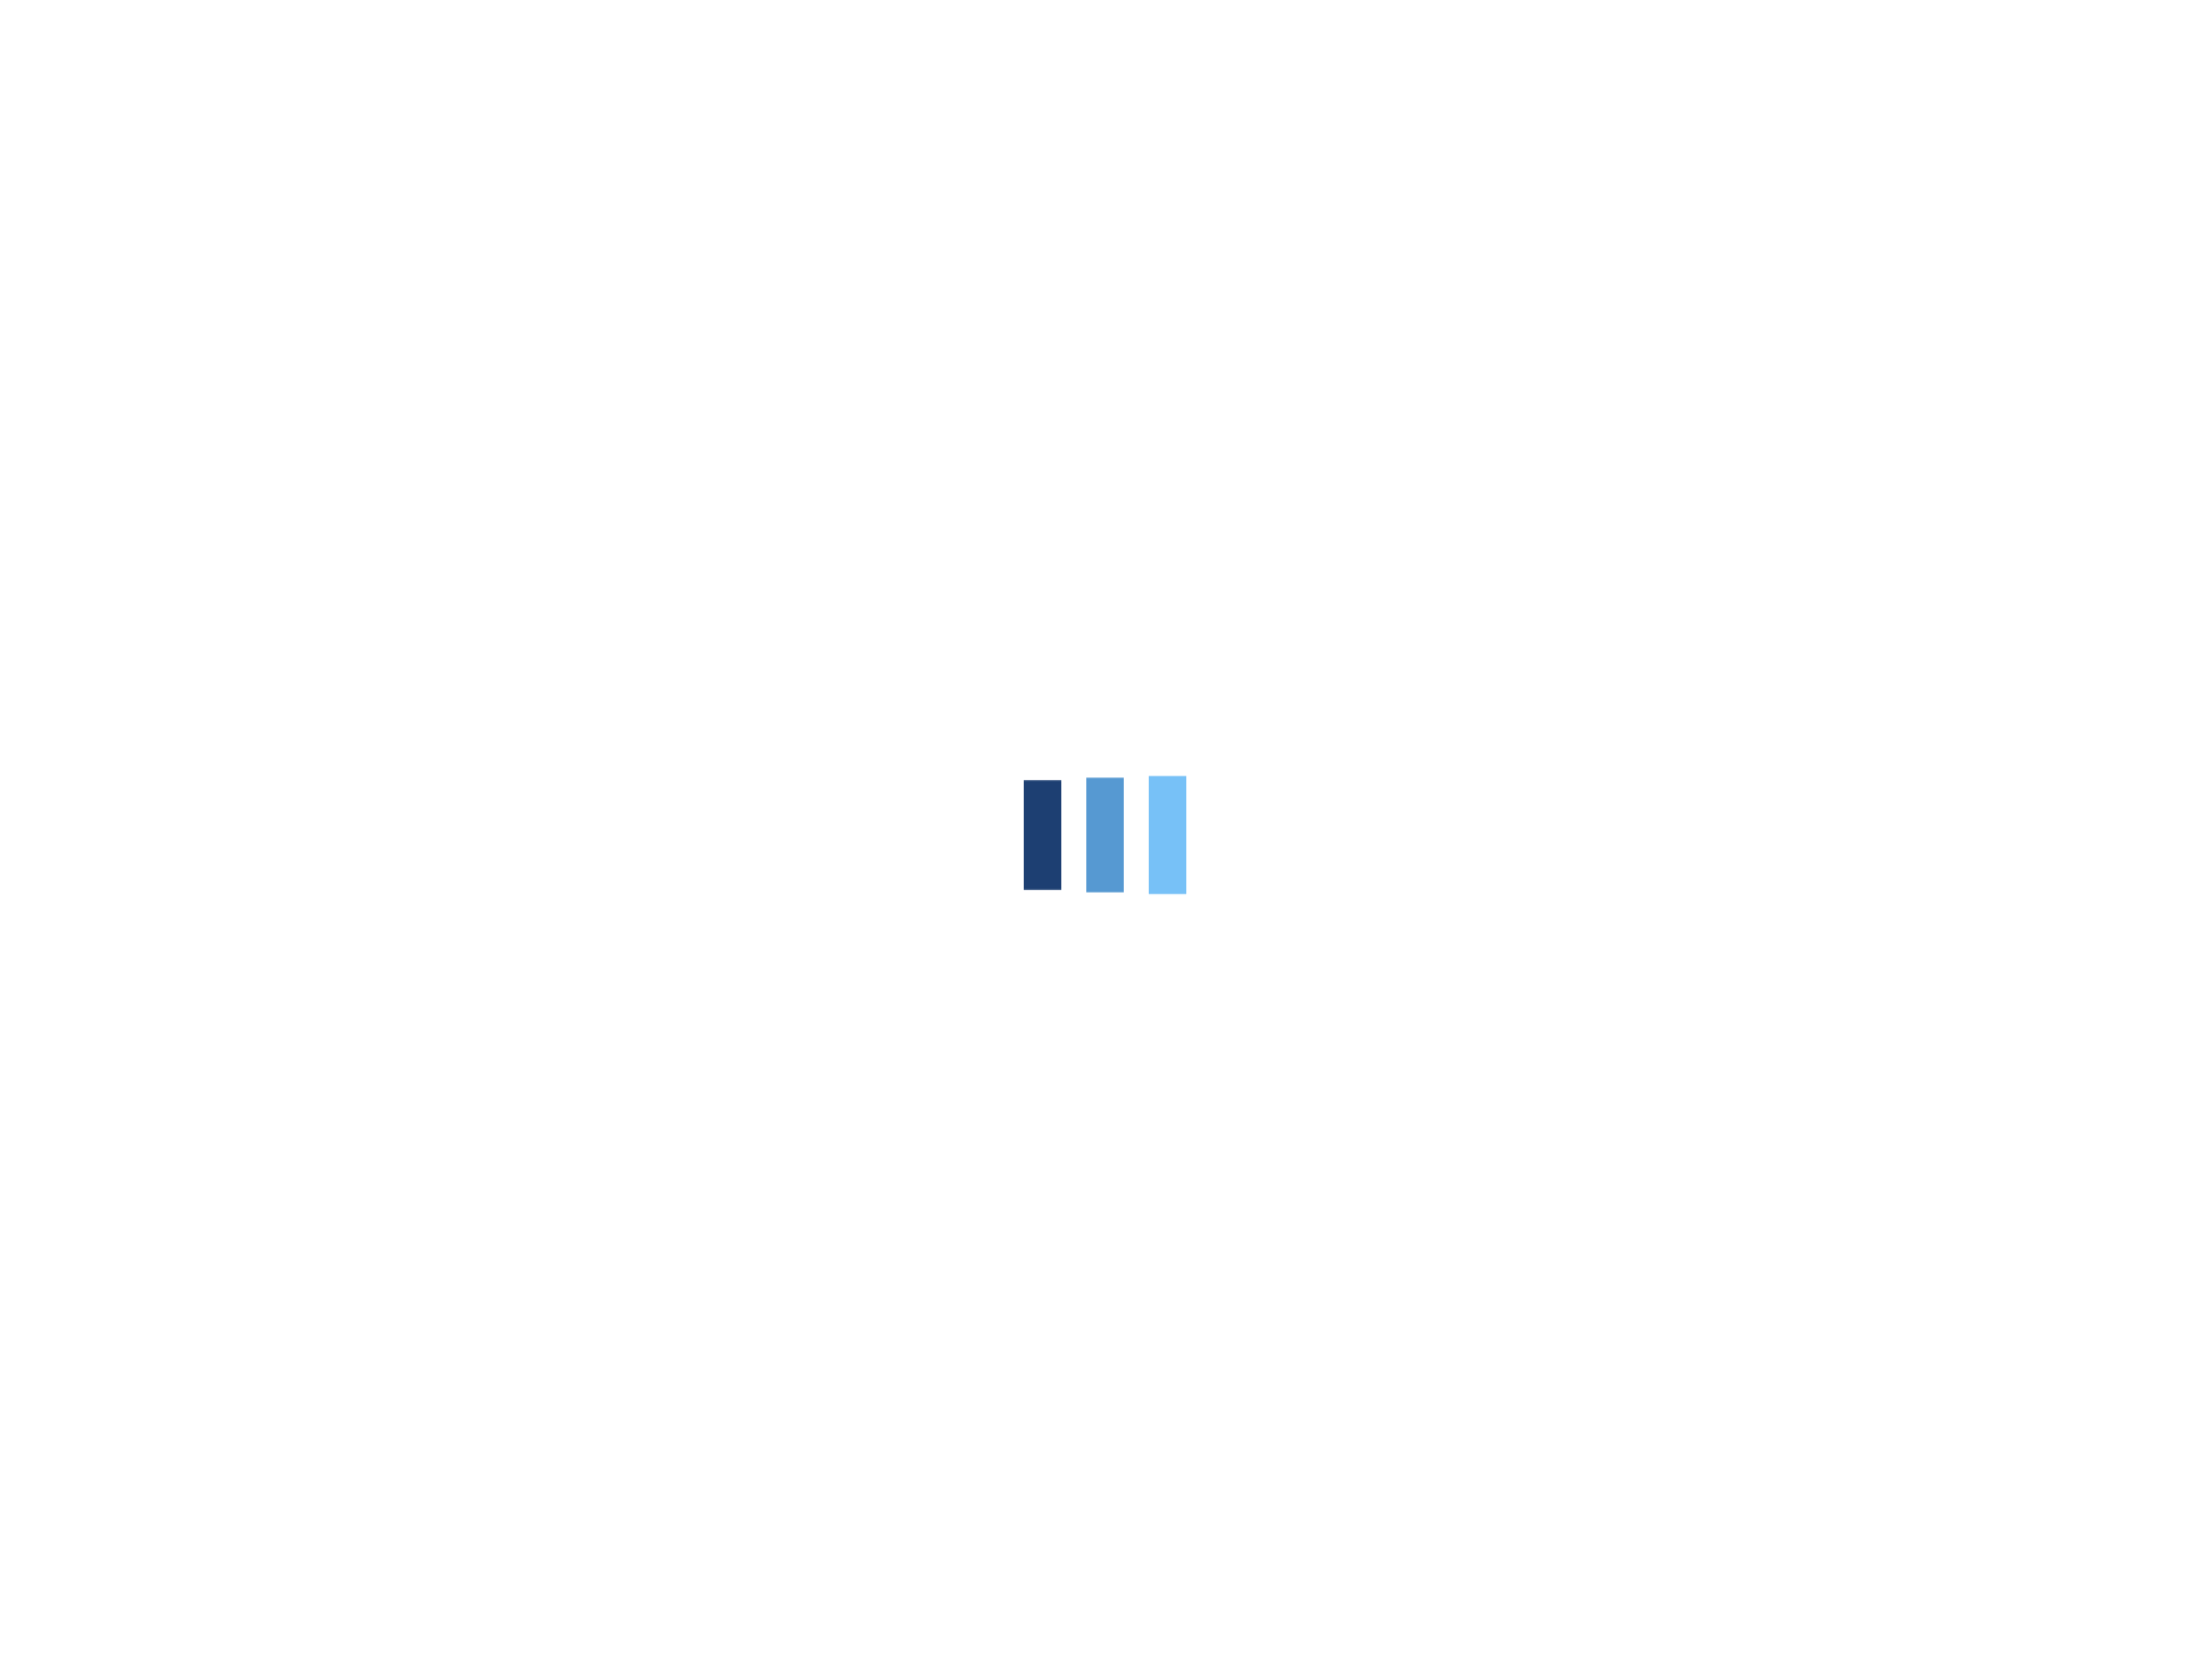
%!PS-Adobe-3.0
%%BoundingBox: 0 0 2209 1670
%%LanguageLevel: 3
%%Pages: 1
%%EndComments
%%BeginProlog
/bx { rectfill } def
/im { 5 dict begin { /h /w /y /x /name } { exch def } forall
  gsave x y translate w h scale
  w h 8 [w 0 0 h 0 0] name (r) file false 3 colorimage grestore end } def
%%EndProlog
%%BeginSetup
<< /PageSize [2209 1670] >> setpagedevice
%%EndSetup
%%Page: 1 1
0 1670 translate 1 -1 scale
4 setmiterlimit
1 setgray
0 0 2209 1670 bx
(image0.raw) 1023 775 164 121 im
showpage
%%EOF
